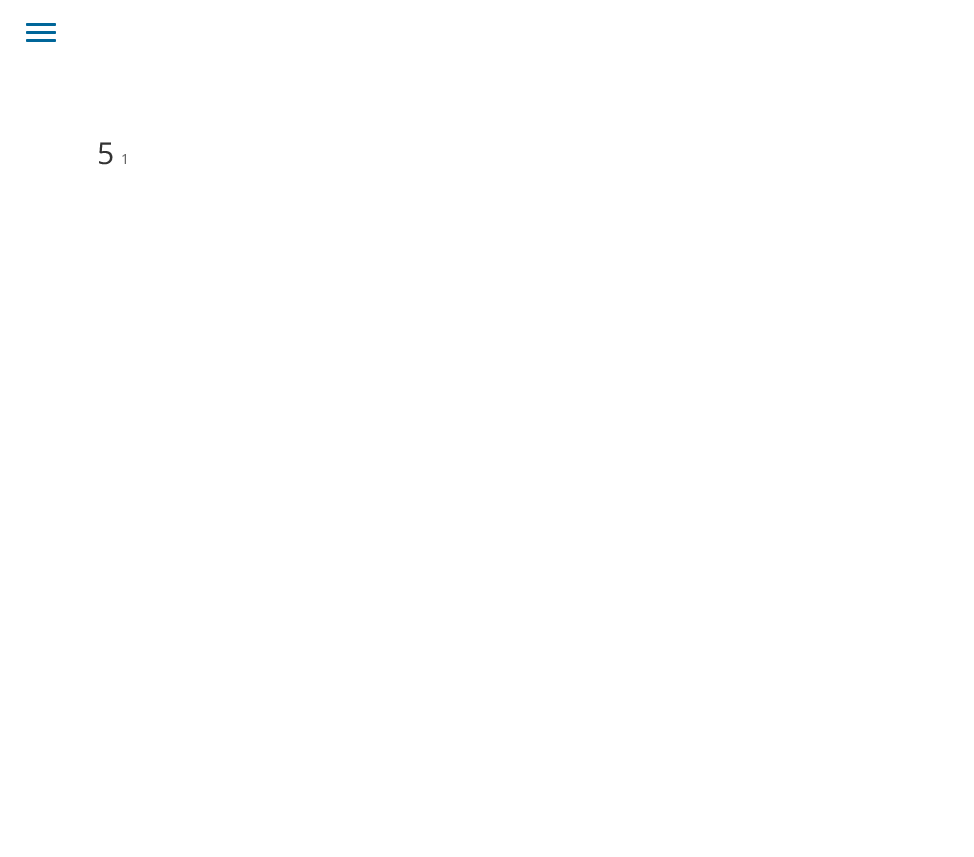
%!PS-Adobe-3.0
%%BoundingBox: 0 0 974 857
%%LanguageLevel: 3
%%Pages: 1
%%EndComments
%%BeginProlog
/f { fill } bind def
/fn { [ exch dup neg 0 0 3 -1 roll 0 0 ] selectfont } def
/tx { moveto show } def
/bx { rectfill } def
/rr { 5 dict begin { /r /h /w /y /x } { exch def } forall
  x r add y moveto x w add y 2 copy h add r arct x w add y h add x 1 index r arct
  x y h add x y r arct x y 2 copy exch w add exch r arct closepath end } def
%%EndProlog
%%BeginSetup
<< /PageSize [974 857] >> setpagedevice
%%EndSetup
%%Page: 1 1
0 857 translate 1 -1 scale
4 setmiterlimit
1 setgray
0 0 974 857 bx
0 0.4 0.6 setrgbcolor
26 31 30 3 1.5 rr f
26 23 30 3 1.5 rr f
26 39 30 3 1.5 rr f
/OpenSans-Regular 30 fn
0.2 setgray
(5) 97 164 tx
/OpenSans-Regular 14 fn
0.4 setgray
(1) 121 164 tx
showpage
%%EOF
